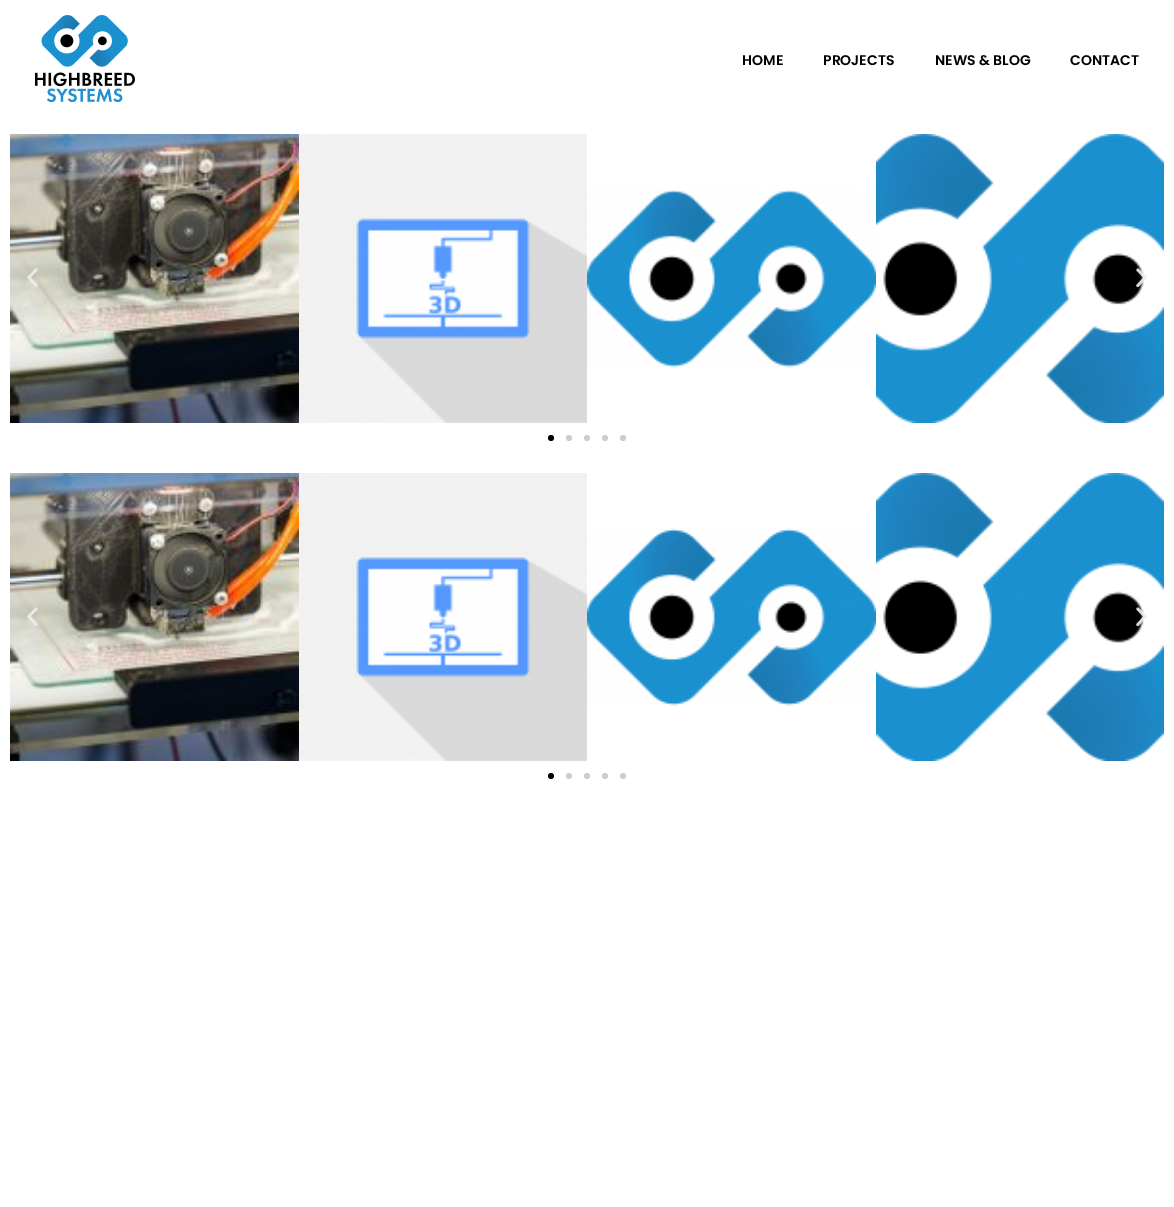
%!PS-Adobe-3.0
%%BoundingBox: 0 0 1174 1207
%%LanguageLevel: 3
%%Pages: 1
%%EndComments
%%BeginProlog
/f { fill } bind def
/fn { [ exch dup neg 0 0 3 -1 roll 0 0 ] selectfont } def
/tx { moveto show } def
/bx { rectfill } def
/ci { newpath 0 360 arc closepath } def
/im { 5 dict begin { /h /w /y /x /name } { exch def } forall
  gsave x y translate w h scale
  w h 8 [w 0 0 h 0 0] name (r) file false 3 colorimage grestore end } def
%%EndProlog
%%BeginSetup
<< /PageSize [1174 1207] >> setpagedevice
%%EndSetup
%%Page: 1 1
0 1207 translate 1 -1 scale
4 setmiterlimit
1 setgray
0 0 1174 1207 bx
(image0.raw) 35 15 100 87 im
/Poppins-SemiBold 14 fn
0 setgray
(HOME) 742 65 tx
(PROJECTS) 823 65 tx
(NEWS & BLOG) 935 65 tx
(CONTACT) 1070 65 tx
(image1.raw) 10 134 289 289 im
(image2.raw) 299 134 288 289 im
(image3.raw) 587 189 289 179 im
(image4.raw) 876 134 288 289 im
(image5.raw) 27 268 11 19 im
(image6.raw) 1136 268 11 20 im
551 438 3 ci f
0.8 setgray
569 438 3 ci f
587 438 3 ci f
605 438 3 ci f
623 438 3 ci f
(image7.raw) 10 473 289 288 im
(image8.raw) 299 473 288 288 im
(image9.raw) 587 528 289 178 im
(image10.raw) 876 473 288 288 im
(image11.raw) 27 607 11 19 im
(image12.raw) 1136 607 11 20 im
0 setgray
551 776 3 ci f
0.8 setgray
569 776 3 ci f
587 776 3 ci f
605 776 3 ci f
623 776 3 ci f
showpage
%%EOF
